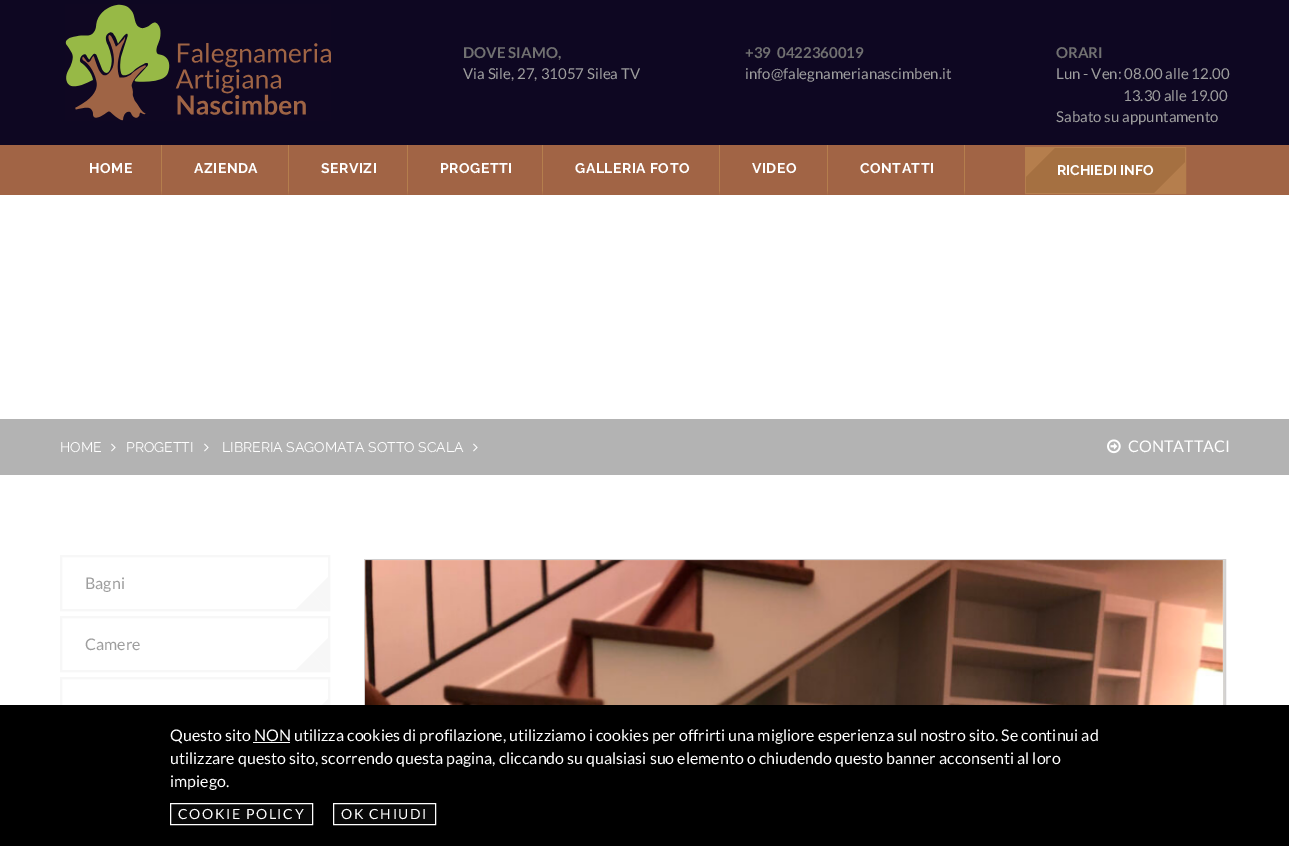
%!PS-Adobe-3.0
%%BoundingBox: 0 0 1289 846
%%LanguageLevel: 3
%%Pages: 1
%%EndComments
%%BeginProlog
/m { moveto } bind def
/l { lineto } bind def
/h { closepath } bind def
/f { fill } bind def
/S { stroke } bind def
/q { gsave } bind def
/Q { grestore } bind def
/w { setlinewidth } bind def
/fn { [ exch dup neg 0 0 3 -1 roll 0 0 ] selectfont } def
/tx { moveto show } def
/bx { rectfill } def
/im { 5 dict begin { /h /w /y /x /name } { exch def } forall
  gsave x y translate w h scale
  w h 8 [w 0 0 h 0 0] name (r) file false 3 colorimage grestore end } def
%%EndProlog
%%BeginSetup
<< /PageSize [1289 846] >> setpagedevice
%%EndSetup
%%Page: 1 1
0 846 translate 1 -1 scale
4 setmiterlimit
1 setgray
0 0 1289 846 bx
0.055 0.027 0.133 setrgbcolor
0 0 1289 145 bx
(image0.raw) 65 4 266 117 im
/Lato-Bold 15 fn
0.443 setgray
(DOVE SIAMO,) 463 58 tx
/Lato-Regular 15 fn
0.62 setgray
(Via Sile, 27, 31057 Silea TV) 463 79 tx
/Lato-Bold 15 fn
0.443 setgray
(+39  0422360019) 745 58 tx
/Lato-Regular 15 fn
0.62 setgray
(info@falegnamerianascimben.it) 745 79 tx
/Lato-Bold 15 fn
0.443 setgray
(ORARI) 1056 58 tx
/Lato-Regular 15 fn
0.62 setgray
(Lun - Ven: 08.00 alle 12.00) 1056 79 tx
(13.30 alle 19.00) 1123 101 tx
(Sabato su appuntamento) 1056 122 tx
0.631 0.392 0.271 setrgbcolor
0 145 1289 50 bx
0.71 0.494 0.302 setrgbcolor
162 145 m 162 195 l 161 190 l 161 145 l h f
/Raleway-Bold 14 fn
1 setgray
89 173 m 0.5 0 (HOME) ashow
0.71 0.494 0.302 setrgbcolor
289 145 m 289 195 l 288 190 l 288 145 l h f
1 setgray
194 173 m 0.5 0 (AZIENDA) ashow
0.71 0.494 0.302 setrgbcolor
408 145 m 408 195 l 407 190 l 407 145 l h f
1 setgray
321 173 m 0.5 0 (SERVIZI) ashow
0.71 0.494 0.302 setrgbcolor
543 145 m 543 195 l 542 190 l 542 145 l h f
1 setgray
440 173 m 0.5 0 (PROGETTI) ashow
0.71 0.494 0.302 setrgbcolor
720 145 m 720 195 l 719 190 l 719 145 l h f
1 setgray
575 173 m 0.5 0 (GALLERIA FOTO) ashow
0.71 0.494 0.302 setrgbcolor
828 145 m 828 195 l 827 190 l 827 145 l h f
1 setgray
752 173 m 0.5 0 (VIDEO) ashow
0.71 0.494 0.302 setrgbcolor
965 145 m 965 195 l 964 190 l 964 145 l h f
1 setgray
860 173 m 0.5 0 (CONTATTI) ashow
0.71 0.494 0.302 setrgbcolor
1025.5 147.5 160 46 rectstroke
1026 148 159 45 bx
q
1026 148 159 45 rectclip
0.647 0.439 0.255 setrgbcolor
1013 190 m 1125 78 l 1197 150 l 1085 262 l h f
Q
1 setgray
(RICHIEDI INFO) 1057 175 tx
0.702 setgray
0 419 1289 56 bx
/Raleway-Regular 14 fn
1 setgray
(HOME) 60 452 tx
(image1.raw) 111 443 5 9 im
(PROGETTI) 126 452 tx
(image1.raw) 204 443 5 9 im
(LIBRERIA SAGOMATA SOTTO SCALA) 222 452 tx
(image1.raw) 473 443 5 9 im
(image2.raw) 1107 439 14 15 im
/Lato-Regular 16 fn
(CONTATTACI) 1128 452 tx
0.969 setgray
2 w
61 556 268 54 rectstroke
0.62 setgray
(Bagni) 85 589 tx
0.969 setgray
330 575 m 330 611 l 312 593 l h f
330 611 m 294 611 l 312 593 l h f
61 617 268 54 rectstroke
0.62 setgray
(Camere) 85 650 tx
0.969 setgray
330 636 m 330 672 l 312 654 l h f
330 672 m 294 672 l 312 654 l h f
61 678 268 54 rectstroke
330 697 m 330 733 l 312 715 l h f
0.82 0.812 0.812 setrgbcolor
1 w
364.5 559.5 861 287 rectstroke
(image3.raw) 365 560 858 145 im
(image4.raw) 1223 560 2 145 im
0 setgray
0 705 1289 141 bx
1 setgray
(Questo sito NON utilizza cookies di profilazione, utilizziamo i cookies per offrirti una migliore esperienza sul nostro sito. Se continui ad) 170 741 tx
253 742 37 1 bx
(utilizzare questo sito, scorrendo questa pagina, cliccando su qualsiasi suo elemento o chiudendo questo banner acconsenti al loro) 170 764 tx
(impiego.) 170 787 tx
0.031 setgray
170.5 803.5 m 312.5 803.5 l 312.5 824.5 l 170.5 824.5 l h q f Q
1 setgray
S
/Lato-Regular 14 fn
178 819 m 1.6 0 (COOKIE POLICY) ashow
0.031 setgray
333.5 803.5 m 435.5 803.5 l 435.5 824.5 l 333.5 824.5 l h q f Q
1 setgray
S
341 819 m 1.6 0 (OK CHIUDI) ashow
showpage
%%EOF
